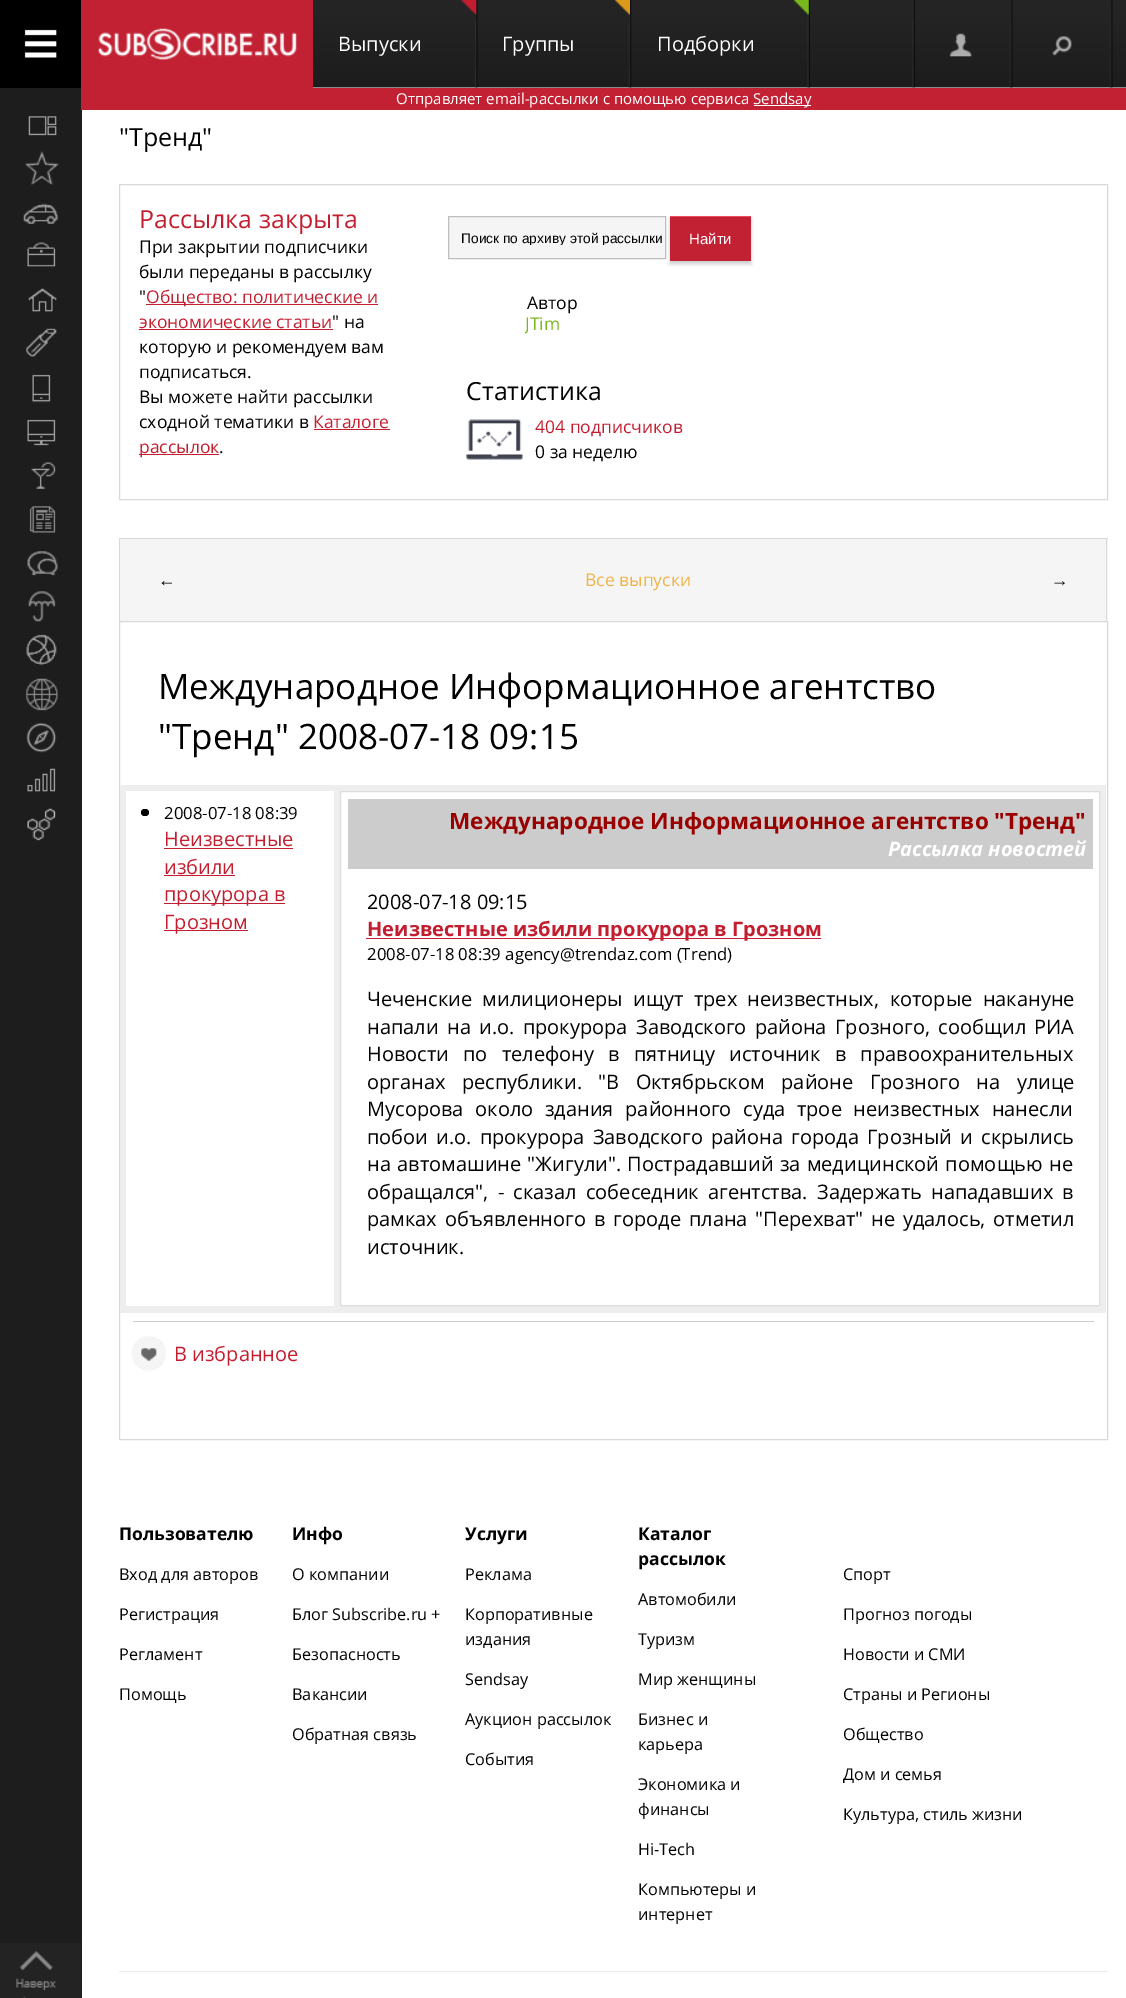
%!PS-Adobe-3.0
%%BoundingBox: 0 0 1126 1998
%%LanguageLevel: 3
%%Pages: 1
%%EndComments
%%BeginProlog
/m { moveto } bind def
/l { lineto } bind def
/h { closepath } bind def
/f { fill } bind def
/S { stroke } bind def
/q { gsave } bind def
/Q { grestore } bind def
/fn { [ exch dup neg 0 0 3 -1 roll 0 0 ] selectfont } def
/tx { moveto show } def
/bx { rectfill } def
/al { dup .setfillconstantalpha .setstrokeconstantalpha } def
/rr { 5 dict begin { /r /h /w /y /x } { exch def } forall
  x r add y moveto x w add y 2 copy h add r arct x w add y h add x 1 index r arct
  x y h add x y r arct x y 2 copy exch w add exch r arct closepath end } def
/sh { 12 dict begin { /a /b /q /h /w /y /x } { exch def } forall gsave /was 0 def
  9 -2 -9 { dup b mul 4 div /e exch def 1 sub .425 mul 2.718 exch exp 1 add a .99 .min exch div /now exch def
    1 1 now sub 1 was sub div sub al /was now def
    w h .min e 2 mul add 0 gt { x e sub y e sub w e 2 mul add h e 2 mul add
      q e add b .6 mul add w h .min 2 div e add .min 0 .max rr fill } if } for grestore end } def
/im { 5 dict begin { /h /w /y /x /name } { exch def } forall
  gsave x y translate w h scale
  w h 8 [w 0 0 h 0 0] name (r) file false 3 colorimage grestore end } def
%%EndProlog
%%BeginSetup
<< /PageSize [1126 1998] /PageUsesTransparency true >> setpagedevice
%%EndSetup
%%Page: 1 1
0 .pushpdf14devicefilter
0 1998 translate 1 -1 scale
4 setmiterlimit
1 setgray
0 0 1126 1998 bx
(image0.raw) 313 0 813 88 im
0 setgray
0 0 81 88 bx
(image1.raw) 24 29 33 29 im
0.757 0.129 0.2 setrgbcolor
81 0 232 88 bx
(image2.raw) 98 28 199 32 im
(image3.raw) 475 0 3 88 im
(image4.raw) 461 0 16 16 im
/OpenSans-Regular 20 fn
1 setgray
(Выпуски) 338 51 tx
(image5.raw) 628 0 4 88 im
(image6.raw) 615 0 15 16 im
(Группы) 502 51 tx
(image7.raw) 807 0 3 88 im
(image8.raw) 793 0 16 16 im
(Подборки) 657 51 tx
(image9.raw) 912 0 3 88 im
(image10.raw) 1009 0 4 88 im
(image11.raw) 949 33 23 24 im
(image12.raw) 1109 0 4 88 im
(image13.raw) 1052 36 20 20 im
0.114 setgray
0 88 82 1910 bx
0.757 0.129 0.2 setrgbcolor
81 88 1045 22 bx
/OpenSans-Regular 15 fn
1 setgray
(Отправляет email-рассылки с помощью сервиса) 396 104 tx
754 105 57 1 bx
(Sendsay) 753 104 tx
(image14.raw) 28 116 29 20 im
(image15.raw) 25 151 34 34 im
(image16.raw) 23 203 36 21 im
(image17.raw) 27 242 29 25 im
(image18.raw) 28 288 29 24 im
(image19.raw) 26 328 31 29 im
(image20.raw) 32 374 19 29 im
(image21.raw) 27 419 29 27 im
(image22.raw) 31 462 25 27 im
(image23.raw) 29 506 27 27 im
(image24.raw) 27 551 31 25 im
(image25.raw) 28 591 28 31 im
(image26.raw) 26 634 31 32 im
(image27.raw) 26 678 32 33 im
(image28.raw) 26 722 31 31 im
(image29.raw) 27 768 29 24 im
(image30.raw) 27 808 29 33 im
/OpenSans-Regular 25 fn
0 setgray
("Тренд") 119 146 tx
0.851 setgray
119.5 184.5 988 315 rectstroke
0.765 0.118 0.184 setrgbcolor
(Рассылка закрыта) 139 228 tx
/OpenSans-Regular 17.5 fn
0 setgray
(При закрытии подписчики) 139 253 tx
(были переданы в рассылку) 139 278 tx
(") 139 303 tx
0.765 0.118 0.184 setrgbcolor
146 304 232 1 bx
(Общество: политические и) 146 303 tx
(экономические статьи) 139 328 tx
139 329 194 1 bx
0 setgray
(" на) 332 328 tx
(которую и рекомендуем вам) 139 353 tx
(подписаться.) 139 378 tx
(Вы можете найти рассылки) 139 403 tx
(сходной тематики в) 139 428 tx
0.765 0.118 0.184 setrgbcolor
(Каталоге) 313 428 tx
314 429 76 1 bx
139 454 80 1 bx
(рассылок) 139 453 tx
0 setgray
(.) 219 453 tx
0.961 setgray
448.5 216.5 m 665.5 216.5 l 665.5 258.5 l 448.5 258.5 l h q f Q
0.745 setgray
S
q
461 230 204 15 rectclip
/LiberationSans-Regular 13.75 fn
0 setgray
(Поиск по архиву этой рассылки) 461 243 tx
Q
0 setgray
670 219 81 45 0 2 0.2 sh
0.757 0.129 0.2 setrgbcolor
670 217 81 44 bx
0.914 0.302 0.373 setrgbcolor
670 216 81 1 bx
/LiberationSans-Regular 15 fn
1 setgray
(Найти) 689 244 tx
/OpenSans-Regular 17.5 fn
0 setgray
(Автор) 527 309 tx
q
525 286 548 50 rectclip
0.471 0.722 0.114 setrgbcolor
(JTim) 525 330 tx
Q
/OpenSans-Regular 25 fn
(Статистика) 466 400 tx
(image31.raw) 466 419 57 41 im
/OpenSans-Regular 17.5 fn
0.765 0.118 0.184 setrgbcolor
(404 подписчиков) 535 433 tx
0 setgray
(0 за неделю) 535 458 tx
0.961 setgray
120 539 988 82 bx
0.851 setgray
119 538 989 1 bx
1106 538 1 83 bx
119 538 1 83 bx
/LiberationSans-Regular 17.5 fn
0 setgray
(←) 158 586 tx
/OpenSans-Regular 17.5 fn
0.929 0.71 0.286 setrgbcolor
(Все выпуски) 585 586 tx
/LiberationSans-Regular 17.5 fn
0 setgray
(→) 1051 586 tx
0.851 setgray
119.5 621.5 988 818 rectstroke
/OpenSans-Regular 35 fn
0 setgray
(Международное Информационное агентство) 158 699 tx
("Тренд" 2008-07-18 09:15) 158 749 tx
0.933 setgray
120 785 986 528 bx
1 setgray
126 791 208 515 bx
0 setgray
141 809 8 7 3.5 rr f
/OpenSans-Regular 16.7 fn
(2008-07-18 08:39) 164 819 tx
/OpenSans-Regular 20 fn
0.765 0.118 0.184 setrgbcolor
(Неизвестные) 164 846 tx
164 848 129 1 bx
(избили) 164 874 tx
164 875 71 1 bx
164 903 121 1 bx
(прокурора в) 164 901 tx
164 930 84 1 bx
(Грозном) 164 929 tx
1 setgray
340.5 791.5 m 1099.5 791.5 l 1099.5 1305.5 l 340.5 1305.5 l h q f Q
0.867 setgray
S
0.8 setgray
348 799 745 70 bx
/OpenSans-Bold 22.5 fn
0.6 0 0 setrgbcolor
(Международное Информационное агентство "Тренд") 449 829 tx
/OpenSans-BoldItalic 20 fn
1 setgray
(Рассылка новостей) 888 856 tx
/OpenSans-Regular 20 fn
0 setgray
(2008-07-18 09:15) 367 909 tx
0.765 0.118 0.184 setrgbcolor
366 938 455 1 bx
/OpenSans-Bold 20 fn
(Неизвестные избили прокурора в Грозном) 367 936 tx
/OpenSans-Regular 16.7 fn
0 setgray
(2008-07-18 08:39 agency@trendaz.com \(Trend\)) 367 960 tx
/OpenSans-Regular 20 fn
367 1006 m 5.25 0 32 (Чеченские милиционеры ищут трех неизвестных, которые накануне) widthshow
367 1034 m 3.25 0 32 (напали на и.о. прокурора Заводского района Грозного, сообщил) widthshow
(РИА) 1034 1034 tx
(Новости) 367 1061 tx
463 1061 m 9 0 32 (по телефону в пятницу источник в правоохранительных) widthshow
367 1089 m 11.5 0 32 (органах республики.) widthshow
598 1089 m 11.5 0 32 ("В Октябрьском районе Грозного на улице) widthshow
367 1116 m 6.5 0 32 (Мусорова около здания районного суда трое неизвестных нанесли) widthshow
367 1144 m 3 0 32 (побои и.о. прокурора Заводского района города Грозный и скрылись) widthshow
367 1171 m 1 0 32 (на автомашине "Жигули". Пострадавший за медицинской помощью не) widthshow
367 1199 m 4 0 32 (обращался", - сказал собеседник агентства.) widthshow
817 1199 m 4 0 32 (Задержать нападавших в) widthshow
367 1226 m 2.75 0 32 (рамках объявленного в городе плана "Перехват" не удалось, отметил) widthshow
(источник.) 367 1254 tx
0.8 setgray
133 1321 961 1 bx
(image32.raw) 131 1336 35 35 im
0.765 0.118 0.184 setrgbcolor
(В избранное) 174 1361 tx
/OpenSans-Bold 17.5 fn
0 setgray
(Пользователю) 119 1540 tx
/OpenSans-Regular 16.25 fn
(Вход для авторов) 119 1580 tx
(Регистрация) 119 1620 tx
(Регламент) 119 1660 tx
(Помощь) 119 1700 tx
/OpenSans-Bold 17.5 fn
(Инфо) 292 1540 tx
/OpenSans-Regular 16.25 fn
(О компании) 292 1580 tx
(Блог Subscribe.ru +) 292 1620 tx
(Безопасность) 292 1660 tx
(Вакансии) 292 1700 tx
(Обратная связь) 292 1740 tx
/OpenSans-Bold 17.5 fn
(Услуги) 465 1540 tx
/OpenSans-Regular 16.25 fn
(Реклама) 465 1580 tx
(Корпоративные) 465 1620 tx
(издания) 465 1645 tx
(Sendsay) 465 1685 tx
(Аукцион рассылок) 465 1725 tx
(События) 465 1765 tx
/OpenSans-Bold 17.5 fn
(Каталог) 638 1540 tx
(рассылок) 638 1565 tx
/OpenSans-Regular 16.25 fn
(Автомобили) 638 1605 tx
(Туризм) 638 1645 tx
(Мир женщины) 638 1685 tx
(Бизнес и) 638 1725 tx
(карьера) 638 1750 tx
(Экономика и) 638 1790 tx
(финансы) 638 1815 tx
(Hi-Tech) 638 1855 tx
(Компьютеры и) 638 1895 tx
(интернет) 638 1920 tx
(Спорт) 843 1580 tx
(Прогноз погоды) 843 1620 tx
(Новости и СМИ) 843 1660 tx
(Страны и Регионы) 843 1700 tx
(Общество) 843 1740 tx
(Дом и семья) 843 1780 tx
(Культура, стиль жизни) 843 1820 tx
0.918 setgray
119 1971 989 1 bx
0.137 setgray
0 1943 81 55 bx
(image33.raw) 16 1951 41 47 im
.poppdf14devicefilter showpage
%%EOF
